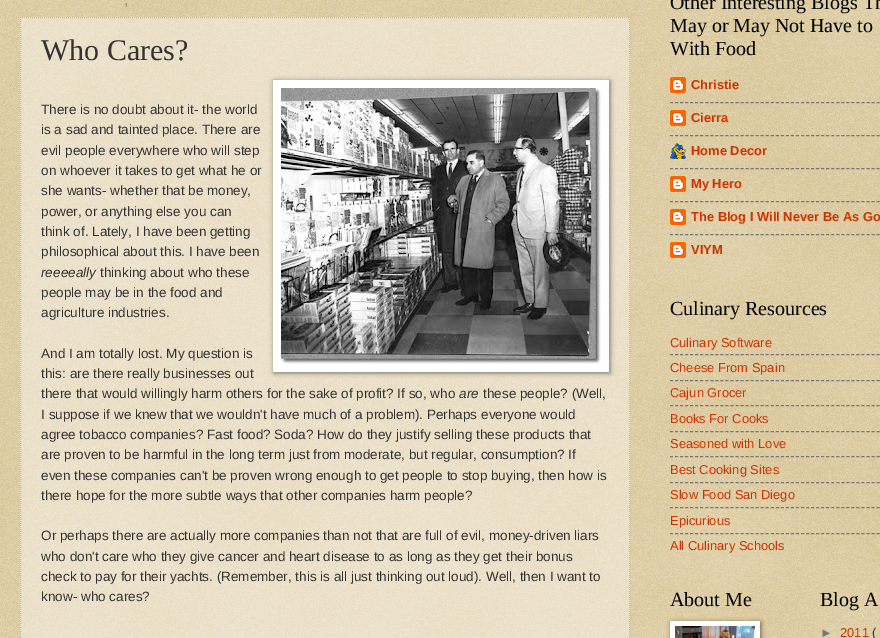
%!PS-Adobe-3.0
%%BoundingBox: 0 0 880 638
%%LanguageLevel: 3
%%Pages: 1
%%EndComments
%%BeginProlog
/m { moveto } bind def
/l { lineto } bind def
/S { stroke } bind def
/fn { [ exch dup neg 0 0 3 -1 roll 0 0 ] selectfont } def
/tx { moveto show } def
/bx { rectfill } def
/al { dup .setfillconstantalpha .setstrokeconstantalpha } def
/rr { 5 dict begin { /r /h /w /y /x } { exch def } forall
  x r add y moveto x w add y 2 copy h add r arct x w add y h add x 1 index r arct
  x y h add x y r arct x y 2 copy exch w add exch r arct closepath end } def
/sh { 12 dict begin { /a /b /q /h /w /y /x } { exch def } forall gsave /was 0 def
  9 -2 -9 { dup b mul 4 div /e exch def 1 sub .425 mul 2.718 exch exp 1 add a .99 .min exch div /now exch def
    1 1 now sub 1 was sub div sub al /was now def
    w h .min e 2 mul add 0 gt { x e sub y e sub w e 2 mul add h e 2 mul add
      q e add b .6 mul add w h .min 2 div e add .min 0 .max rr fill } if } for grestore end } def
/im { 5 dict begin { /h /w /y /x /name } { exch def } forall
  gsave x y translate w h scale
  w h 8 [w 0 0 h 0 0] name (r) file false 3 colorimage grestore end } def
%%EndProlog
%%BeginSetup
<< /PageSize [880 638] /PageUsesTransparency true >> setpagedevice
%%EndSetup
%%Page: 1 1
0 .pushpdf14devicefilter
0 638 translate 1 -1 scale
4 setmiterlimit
0.753 0.631 0.329 setrgbcolor
0 0 880 638 bx
(image0.raw) 0 0 880 638 im
/LiberationSans-Regular 16 fn
0.6 0.467 0.333 setrgbcolor
(,) 124 5 tx
0.4 al
1 setgray
20 17 610 621 bx
1 al
0.8 0.733 0.6 setrgbcolor
[1 1] 0 setdash
20 17.5 m 630 17.5 l S
629.5 17 m 629.5 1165 l S
20.5 17 m 20.5 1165 l S
/LiberationSerif-Regular 30 fn
0.2 setgray
(Who Cares?) 41 60 tx
/LiberationSans-Regular 13.5 fn
(There is no doubt about it- the world) 41 114 tx
0 setgray
274 81 336 292 0 2.5 0.5 sh
1 setgray
273 80 336 292 bx
(image1.raw) 281 88 320 276 im
0.2 setgray
(is a sad and tainted place. There are) 41 134 tx
(evil people everywhere who will step) 41 155 tx
(on whoever it takes to get what he or) 41 175 tx
(she wants- whether that be money,) 41 195 tx
(power, or anything else you can) 41 216 tx
(think of. Lately, I have been getting) 41 236 tx
(philosophical about this. I have been) 41 256 tx
/LiberationSans-Italic 13.5 fn
(reeeeally) 41 277 tx
/LiberationSans-Regular 13.5 fn
(thinking about who these) 100 277 tx
(people may be in the food and) 41 297 tx
(agriculture industries.) 41 317 tx
(And I am totally lost. My question is) 41 358 tx
(this: are there really businesses out) 41 378 tx
(there that would willingly harm others for the sake of profit? If so, who) 41 398 tx
/LiberationSans-Italic 13.5 fn
(are) 459 398 tx
/LiberationSans-Regular 13.5 fn
(these people? \(Well,) 483 398 tx
(I suppose if we knew that we wouldn't have much of a problem\). Perhaps everyone would) 41 419 tx
(agree tobacco companies? Fast food? Soda? How do they justify selling these products that) 41 439 tx
(are proven to be harmful in the long term just from moderate, but regular, consumption? If) 41 459 tx
(even these companies can't be proven wrong enough to get people to stop buying, then how is) 41 480 tx
(there hope for the more subtle ways that other companies harm people?) 41 500 tx
(Or perhaps there are actually more companies than not that are full of evil, money-driven liars) 41 540 tx
(who don't care who they give cancer and heart disease to as long as they get their bonus) 41 561 tx
(check to pay for their yachts. \(Remember, this is all just thinking out loud\). Well, then I want to) 41 581 tx
(know- who cares?) 41 601 tx
/LiberationSerif-Regular 20 fn
0 setgray
(Other Interesting Blogs Th) 670 9 tx
(May or May Not Have to) 670 32 tx
(With Food) 670 55 tx
(image2.raw) 670 77 16 16 im
/LiberationSans-Bold 12.9 fn
0.8 0.2 0 setrgbcolor
(Christie) 691 89 tx
0.467 setgray
[3 2.04] 0 setdash
670 102.5 m 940 102.5 l S
(image3.raw) 670 110 16 16 im
0.8 0.2 0 setrgbcolor
(Cierra) 691 122 tx
0.467 setgray
670 135.5 m 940 135.5 l S
(image4.raw) 670 143 16 16 im
0.8 0.2 0 setrgbcolor
(Home Decor) 691 155 tx
0.467 setgray
670 168.5 m 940 168.5 l S
(image5.raw) 670 176 16 16 im
0.8 0.2 0 setrgbcolor
(My Hero) 691 188 tx
0.467 setgray
670 201.5 m 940 201.5 l S
(image6.raw) 670 209 16 16 im
0.8 0.2 0 setrgbcolor
(The Blog I Will Never Be As Go) 691 221 tx
0.467 setgray
670 234.5 m 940 234.5 l S
(image7.raw) 670 242 16 16 im
0.8 0.2 0 setrgbcolor
(VIYM) 691 254 tx
/LiberationSerif-Regular 20 fn
0 setgray
(Culinary Resources) 670 315 tx
/LiberationSans-Regular 12.9 fn
0.8 0.2 0 setrgbcolor
(Culinary Software) 670 347 tx
0.467 setgray
670 354.5 m 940 354.5 l S
0.8 0.2 0 setrgbcolor
(Cheese From Spain) 670 372 tx
0.467 setgray
670 380.5 m 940 380.5 l S
0.8 0.2 0 setrgbcolor
(Cajun Grocer) 670 397 tx
0.467 setgray
670 405.5 m 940 405.5 l S
0.8 0.2 0 setrgbcolor
(Books For Cooks) 670 423 tx
0.467 setgray
670 431.5 m 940 431.5 l S
0.8 0.2 0 setrgbcolor
(Seasoned with Love) 670 448 tx
0.467 setgray
670 456.5 m 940 456.5 l S
0.8 0.2 0 setrgbcolor
(Best Cooking Sites) 670 474 tx
0.467 setgray
670 482.5 m 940 482.5 l S
0.8 0.2 0 setrgbcolor
(Slow Food San Diego) 670 499 tx
0.467 setgray
670 507.5 m 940 507.5 l S
0.8 0.2 0 setrgbcolor
(Epicurious) 670 525 tx
0.467 setgray
670 533.5 m 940 533.5 l S
0.8 0.2 0 setrgbcolor
(All Culinary Schools) 670 550 tx
/LiberationSerif-Regular 20 fn
0 setgray
(About Me) 670 606 tx
671 622 90 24 0 2.5 0.5 sh
1 setgray
670 621 90 17 bx
(image8.raw) 675 626 80 12 im
0 setgray
(Blog A) 820 606 tx
/LiberationSans-Regular 12.9 fn
0.467 setgray
(►) 820 637 tx
0.8 0.2 0 setrgbcolor
(2011) 840 637 tx
0.2 setgray
(\() 872 637 tx
.poppdf14devicefilter showpage
%%EOF
